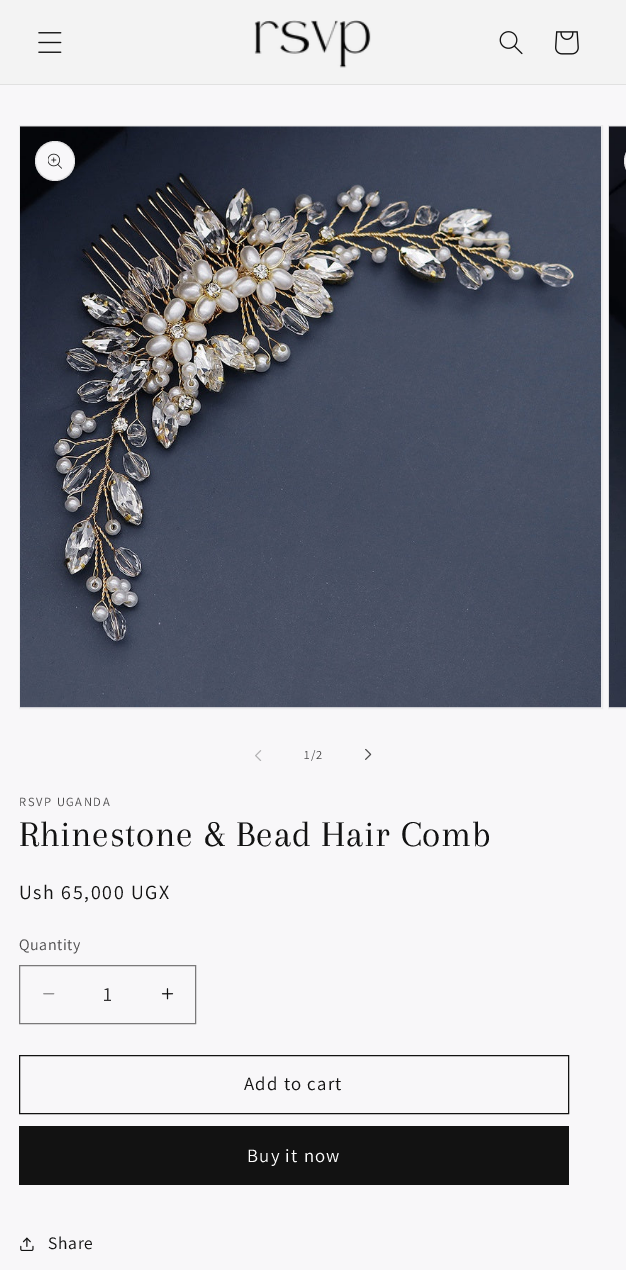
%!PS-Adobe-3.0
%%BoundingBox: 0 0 626 1270
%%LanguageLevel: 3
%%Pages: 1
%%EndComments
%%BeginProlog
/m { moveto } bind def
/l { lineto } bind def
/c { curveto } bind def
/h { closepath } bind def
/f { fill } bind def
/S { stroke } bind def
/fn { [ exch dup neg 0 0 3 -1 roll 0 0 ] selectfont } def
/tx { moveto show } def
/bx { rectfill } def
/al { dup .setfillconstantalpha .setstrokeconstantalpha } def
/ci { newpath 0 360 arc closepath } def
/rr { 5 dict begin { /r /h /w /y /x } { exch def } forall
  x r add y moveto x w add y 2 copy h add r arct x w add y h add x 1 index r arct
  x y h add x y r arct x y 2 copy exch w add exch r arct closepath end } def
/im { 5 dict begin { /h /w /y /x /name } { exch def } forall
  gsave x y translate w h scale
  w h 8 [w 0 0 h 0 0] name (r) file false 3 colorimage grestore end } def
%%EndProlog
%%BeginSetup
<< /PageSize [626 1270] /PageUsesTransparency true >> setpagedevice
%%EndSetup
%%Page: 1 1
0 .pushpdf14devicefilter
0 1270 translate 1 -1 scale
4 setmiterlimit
0.973 0.969 0.976 setrgbcolor
0 0 626 1270 bx
0.953 setgray
0 0 626 84 bx
0.882 setgray
0 84 626 1 bx
(image0.raw) 38 32 24 21 im
(image1.raw) 254 20 117 48 im
(image2.raw) 499 31 24 24 im
(image3.raw) 555 31 24 24 im
0.925 0.925 0.929 setrgbcolor
19.5 125.5 583 583 rectstroke
(image4.raw) 20 126 582 582 im
0.973 0.969 0.976 setrgbcolor
55 161 20 ci f
0.1 al
0.071 setgray
55 161 19.5 ci S
1 al
(image5.raw) 48 153 14 16 im
0.925 0.925 0.929 setrgbcolor
608.5 125.5 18 583 rectstroke
(image6.raw) 608 126 18 582 im
0.973 0.969 0.976 setrgbcolor
644 141 m 626 141 l 626 181 l 644 181 l 633 181 624 172 624 161 c 624 150 633 141 644 141 c h f
0.1 al
0.071 setgray
624.5 141.5 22 39 19.5 rr S
1 al
(image7.raw) 255 750 7 11 im
/Assistant-Regular 12.5 fn
0.298 0.294 0.298 setrgbcolor
304 759 m 1 0 (1/2) ashow
(image8.raw) 365 748 7 12 im
19 806 m 1.6 0 (RSVP UGANDA) ashow
/Arapey-Regular 37.5 fn
0.071 setgray
19 846 m 0.75 0 (Rhinestone & Bead Hair Comb) ashow
/Assistant-Regular 20 fn
19 899 m 1.6 0 (Ush 65,000 UGX) ashow
/Assistant-Regular 16 fn
0.298 0.294 0.298 setrgbcolor
19 950 m 0.5 0 (Quantity) ashow
(image9.raw) 43 993 12 2 im
(image10.raw) 161 988 13 12 im
0.478 0.475 0.478 setrgbcolor
19.5 965.5 176 58 rectstroke
/Assistant-Regular 20 fn
0.208 0.204 0.208 setrgbcolor
(1) 103 1001 tx
0.071 setgray
19.5 1055.5 549 58 rectstroke
/Assistant-Regular 18.75 fn
244 1090 m 1.25 0 (Add to cart) ashow
19 1126 550 59 bx
1 setgray
247 1162 m 1.25 0 (Buy it now) ashow
(image11.raw) 20 1237 14 14 im
/Assistant-Regular 17.5 fn
0.071 setgray
48 1249 m 0.75 0 (Share) ashow
.poppdf14devicefilter showpage
%%EOF
